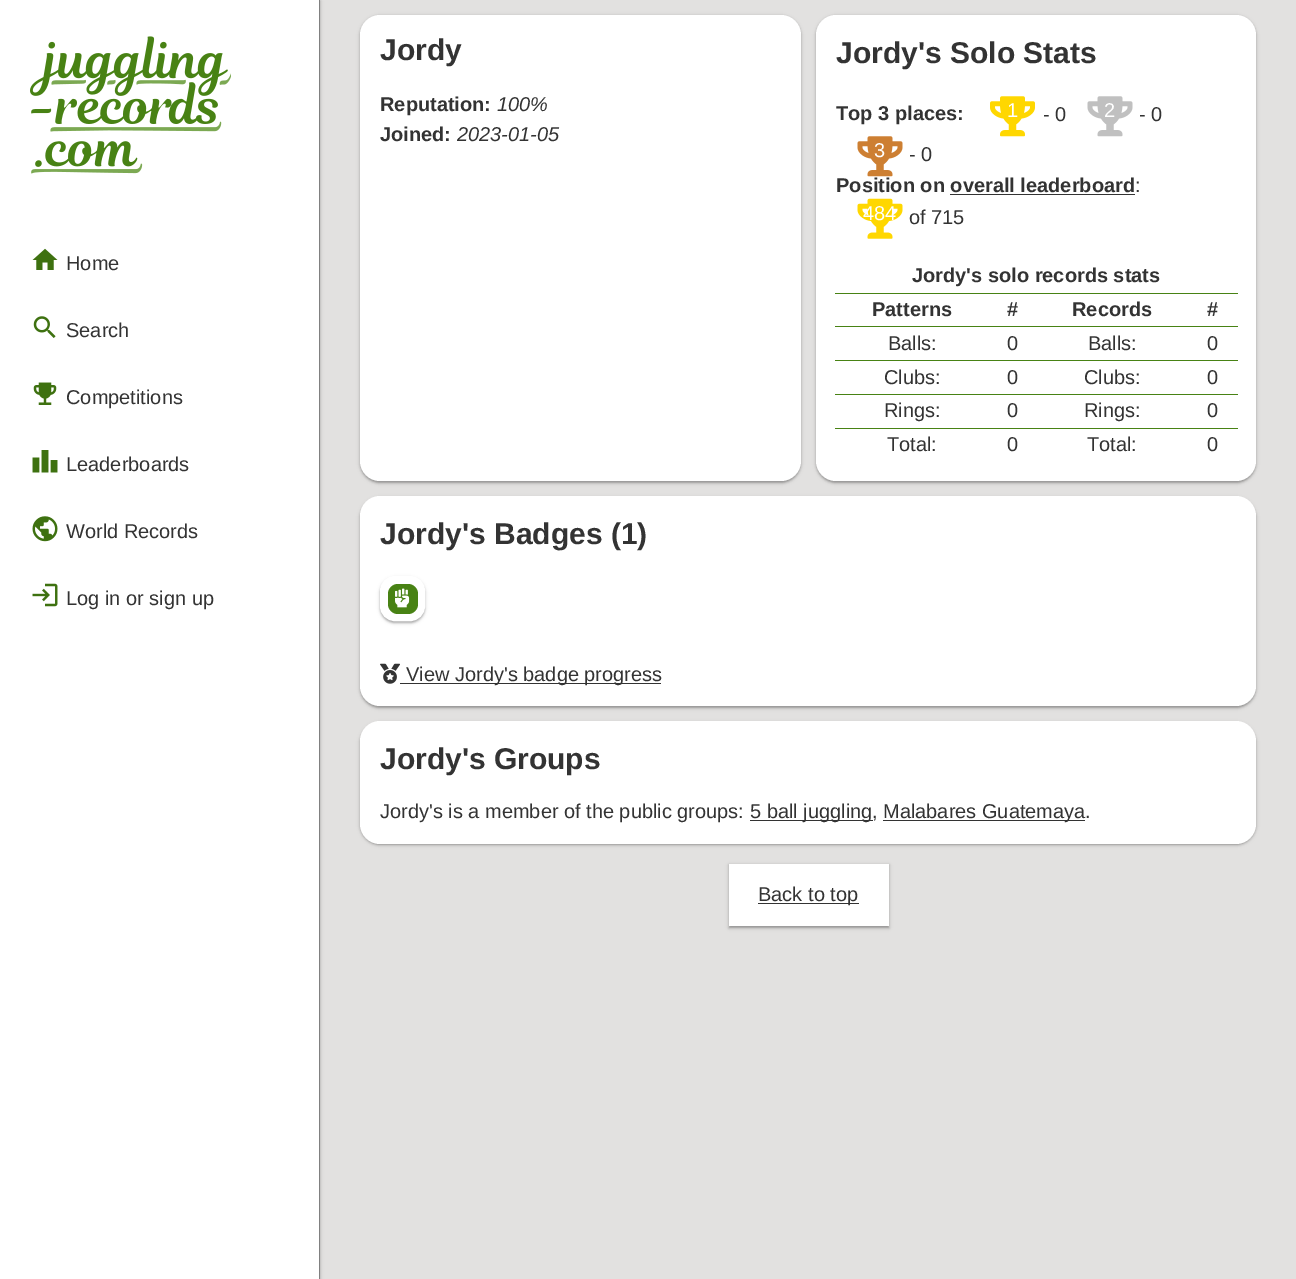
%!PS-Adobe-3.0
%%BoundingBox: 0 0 1296 1279
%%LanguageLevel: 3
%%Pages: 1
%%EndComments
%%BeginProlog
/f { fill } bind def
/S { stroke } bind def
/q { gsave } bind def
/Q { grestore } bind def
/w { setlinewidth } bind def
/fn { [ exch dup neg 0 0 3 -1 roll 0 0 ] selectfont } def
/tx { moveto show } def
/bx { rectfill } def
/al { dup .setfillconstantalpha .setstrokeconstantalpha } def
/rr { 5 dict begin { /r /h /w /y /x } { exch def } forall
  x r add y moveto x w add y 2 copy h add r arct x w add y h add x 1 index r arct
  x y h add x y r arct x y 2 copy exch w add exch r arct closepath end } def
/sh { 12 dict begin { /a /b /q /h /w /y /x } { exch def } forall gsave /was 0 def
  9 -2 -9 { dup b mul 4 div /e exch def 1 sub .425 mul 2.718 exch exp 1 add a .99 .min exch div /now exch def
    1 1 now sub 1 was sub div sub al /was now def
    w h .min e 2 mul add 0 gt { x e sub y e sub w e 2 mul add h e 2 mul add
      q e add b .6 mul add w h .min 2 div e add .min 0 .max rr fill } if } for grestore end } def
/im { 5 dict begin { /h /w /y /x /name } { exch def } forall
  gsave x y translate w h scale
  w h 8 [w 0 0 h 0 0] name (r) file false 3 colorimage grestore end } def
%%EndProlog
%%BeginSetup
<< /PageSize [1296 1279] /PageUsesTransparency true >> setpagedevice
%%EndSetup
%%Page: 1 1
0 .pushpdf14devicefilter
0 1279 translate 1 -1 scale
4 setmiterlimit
0.886 0.882 0.878 setrgbcolor
0 0 1296 1279 bx
0 setgray
0 1 320 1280 0 1 0.24 sh
0 1 320 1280 0 2 0.12 sh
1 setgray
0 0 319 1279 bx
0.502 setgray
319 0 1 1279 bx
(image0.raw) 30 36 201 138 im
(image1.raw) 32 248 26 22 im
/LiberationSans-Regular 20 fn
0.2 setgray
(Home) 66 270 tx
(image2.raw) 33 316 23 22 im
(Search) 66 337 tx
(image3.raw) 33 382 24 23 im
(Competitions) 66 404 tx
(image4.raw) 32 450 26 23 im
(Leaderboards) 66 471 tx
(image5.raw) 32 516 26 26 im
(World Records) 66 538 tx
(image6.raw) 32 583 26 24 im
(Log in or sign up) 66 605 tx
0 setgray
360 16 441 467 20 1 0.24 sh
360 16 441 467 20 2 0.12 sh
1 setgray
360 15 441 466 20 rr f
/LiberationSans-Bold 30 fn
0.2 setgray
(Jordy) 380 60 tx
/LiberationSans-Bold 20 fn
(Reputation:) 380 111 tx
/LiberationSans-Italic 20 fn
(100%) 497 111 tx
/LiberationSans-Bold 20 fn
(Joined:) 380 141 tx
/LiberationSans-Italic 20 fn
(2023-01-05) 457 141 tx
0 setgray
816 16 440 467 20 1 0.24 sh
816 16 440 467 20 2 0.12 sh
1 setgray
816 15 440 466 20 rr f
/LiberationSans-Bold 30 fn
0.2 setgray
(Jordy's Solo Stats) 836 63 tx
/LiberationSans-Bold 20 fn
(Top 3 places:) 836 120 tx
(image7.raw) 990 96 45 41 im
/LiberationSans-Regular 20 fn
1 setgray
(1) 1007 117 tx
0.2 setgray
(- 0) 1043 121 tx
(image8.raw) 1087 96 46 41 im
1 setgray
(2) 1104 117 tx
0.2 setgray
(- 0) 1139 121 tx
(image9.raw) 857 136 46 41 im
1 setgray
(3) 874 157 tx
0.2 setgray
(- 0) 909 161 tx
/LiberationSans-Bold 20 fn
(Position on overall leaderboard) 836 192 tx
950 194 185 1 bx
/LiberationSans-Regular 20 fn
(:) 1135 192 tx
(image10.raw) 857 198 46 41 im
1 setgray
(484) 863 220 tx
0.2 setgray
(of 715) 909 224 tx
/LiberationSans-Bold 20 fn
(Jordy's solo records stats) 912 282 tx
0.282 0.51 0.078 setrgbcolor
835 293 403 1 bx
0.2 setgray
(Patterns) 872 316 tx
(#) 1007 316 tx
(Records) 1072 316 tx
(#) 1207 316 tx
0.282 0.51 0.078 setrgbcolor
835 326 403 1 bx
/LiberationSans-Regular 20 fn
0.2 setgray
(Balls:) 888 350 tx
(0) 1007 350 tx
(Balls:) 1088 350 tx
(0) 1207 350 tx
0.282 0.51 0.078 setrgbcolor
835 360 403 1 bx
0.2 setgray
(Clubs:) 884 384 tx
(0) 1007 384 tx
(Clubs:) 1084 384 tx
(0) 1207 384 tx
0.282 0.51 0.078 setrgbcolor
835 394 403 1 bx
0.2 setgray
(Rings:) 884 417 tx
(0) 1007 417 tx
(Rings:) 1084 417 tx
(0) 1207 417 tx
0.282 0.51 0.078 setrgbcolor
835 428 403 1 bx
0.2 setgray
(Total:) 887 451 tx
(0) 1007 451 tx
(Total:) 1087 451 tx
(0) 1207 451 tx
0 setgray
360 498 896 210 20 1 0.24 sh
360 498 896 210 20 2 0.12 sh
1 setgray
360 496 896 210 20 rr f
/LiberationSans-Bold 30 fn
0.2 setgray
(Jordy's Badges \(1\)) 380 544 tx
0 setgray
380 578 45 45 15 1 0.24 sh
380 578 45 45 15 2 0.12 sh
1 setgray
384 580 37 37 11 rr q f Q
8 w
S
0.282 0.51 0.078 setrgbcolor
388 584 30 30 10 rr f
(image11.raw) 395 588 15 20 im
(image12.raw) 380 663 20 21 im
0.2 setgray
400 683 261 1 bx
/LiberationSans-Regular 20 fn
(View Jordy's badge progress) 406 681 tx
0 setgray
360 723 896 122 20 1 0.24 sh
360 723 896 122 20 2 0.12 sh
1 setgray
360 721 896 123 20 rr f
/LiberationSans-Bold 30 fn
0.2 setgray
(Jordy's Groups) 380 769 tx
/LiberationSans-Regular 20 fn
(Jordy's is a member of the public groups:) 380 818 tx
750 820 123 1 bx
(5 ball juggling,) 750 818 tx
883 820 202 1 bx
(Malabares Guatemaya.) 883 818 tx
0 setgray
729 865 160 63 0 1 0.24 sh
729 865 160 63 0 2 0.12 sh
1 setgray
729 864 160 62 bx
0.2 setgray
758 903 101 1 bx
(Back to top) 758 901 tx
.poppdf14devicefilter showpage
%%EOF
